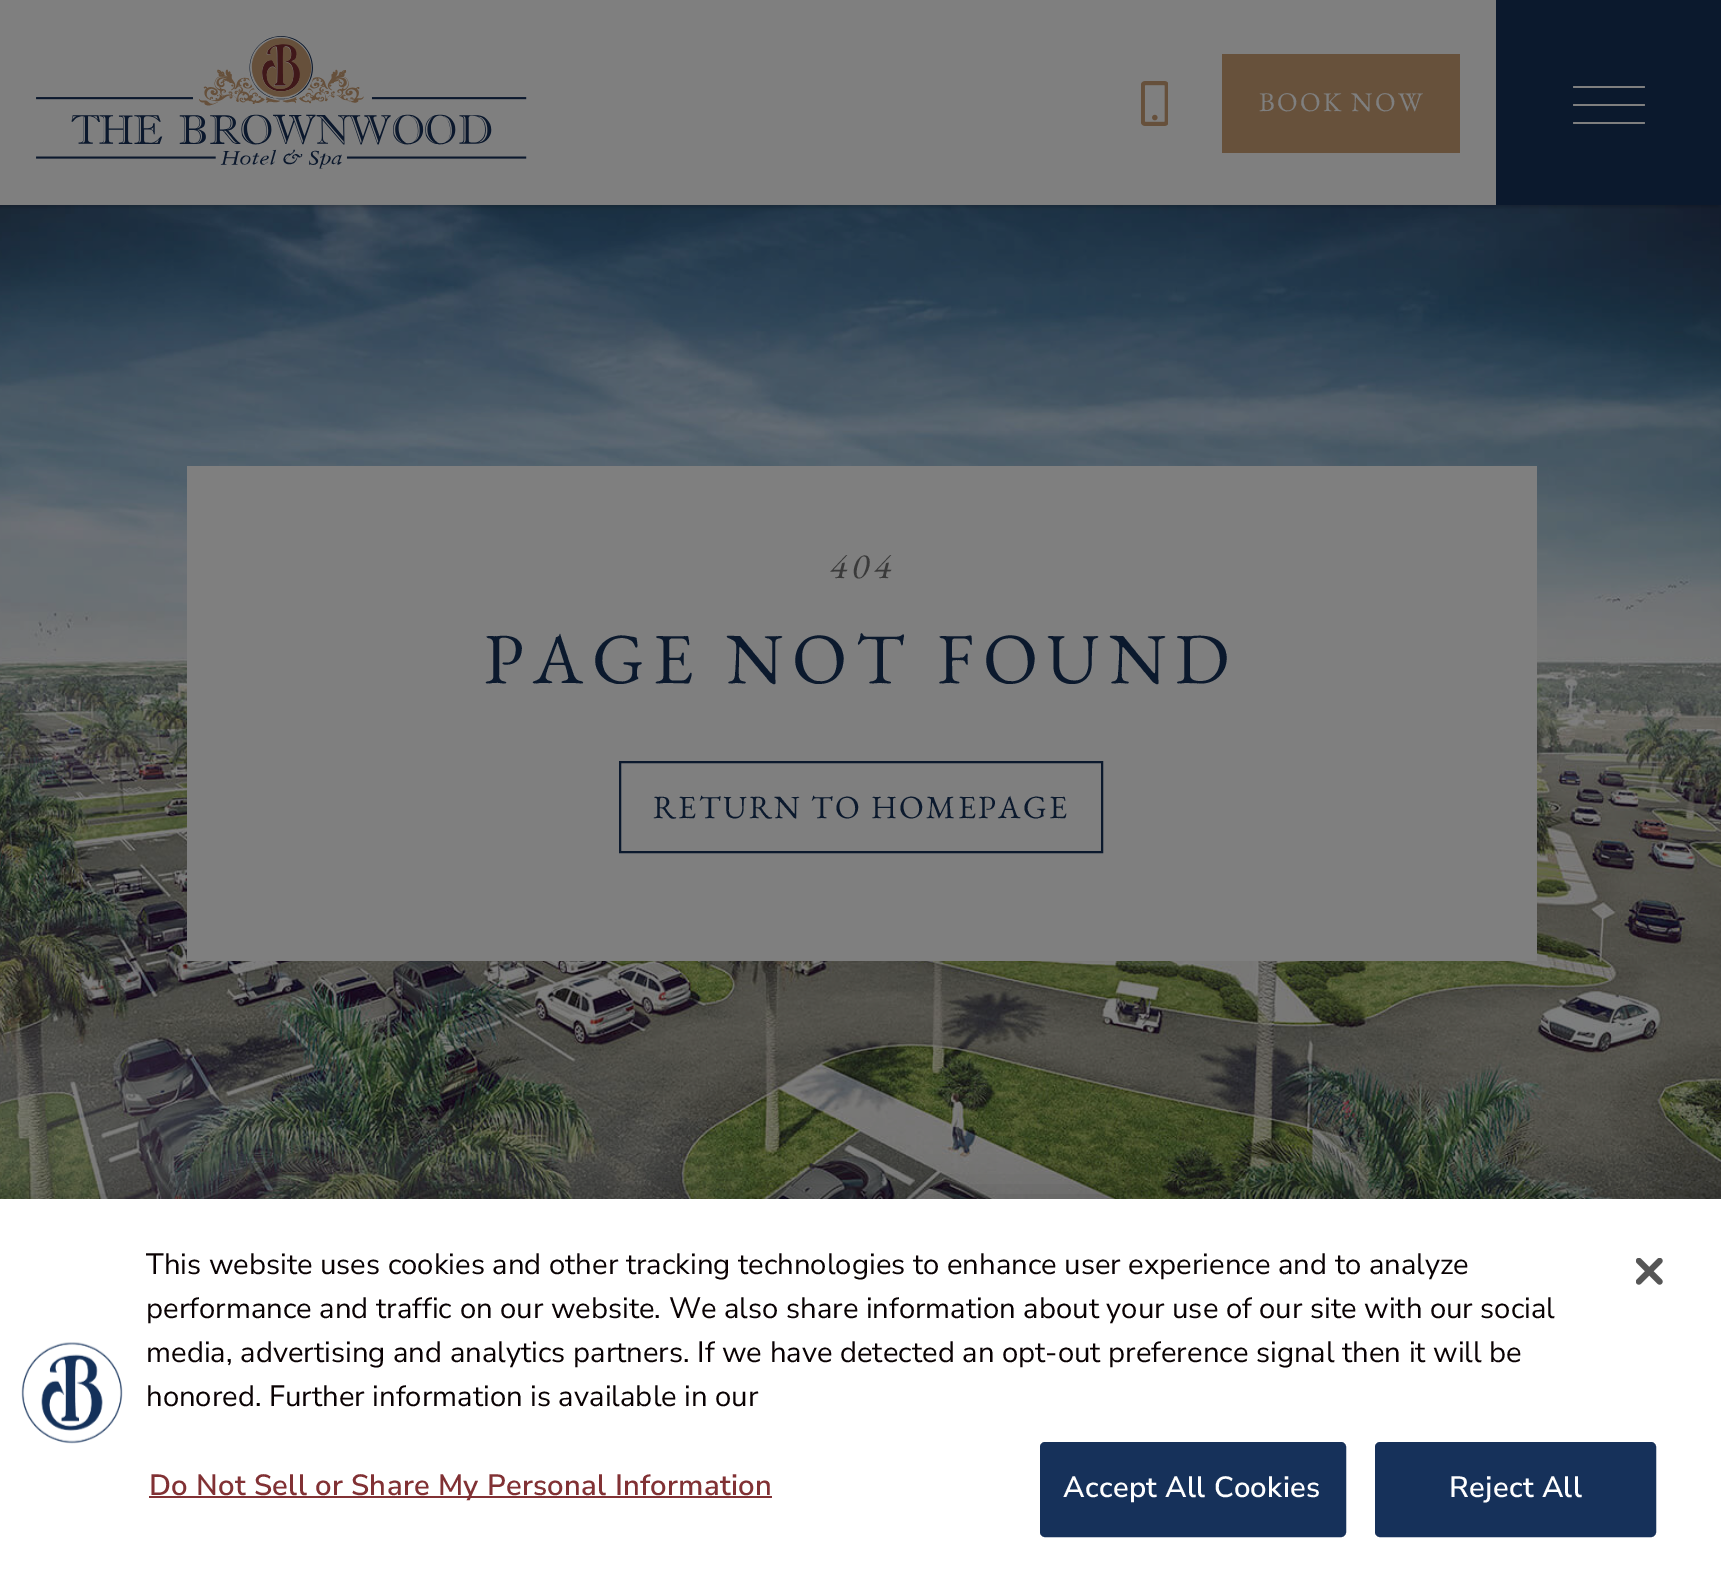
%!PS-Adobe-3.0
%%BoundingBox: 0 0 1721 1585
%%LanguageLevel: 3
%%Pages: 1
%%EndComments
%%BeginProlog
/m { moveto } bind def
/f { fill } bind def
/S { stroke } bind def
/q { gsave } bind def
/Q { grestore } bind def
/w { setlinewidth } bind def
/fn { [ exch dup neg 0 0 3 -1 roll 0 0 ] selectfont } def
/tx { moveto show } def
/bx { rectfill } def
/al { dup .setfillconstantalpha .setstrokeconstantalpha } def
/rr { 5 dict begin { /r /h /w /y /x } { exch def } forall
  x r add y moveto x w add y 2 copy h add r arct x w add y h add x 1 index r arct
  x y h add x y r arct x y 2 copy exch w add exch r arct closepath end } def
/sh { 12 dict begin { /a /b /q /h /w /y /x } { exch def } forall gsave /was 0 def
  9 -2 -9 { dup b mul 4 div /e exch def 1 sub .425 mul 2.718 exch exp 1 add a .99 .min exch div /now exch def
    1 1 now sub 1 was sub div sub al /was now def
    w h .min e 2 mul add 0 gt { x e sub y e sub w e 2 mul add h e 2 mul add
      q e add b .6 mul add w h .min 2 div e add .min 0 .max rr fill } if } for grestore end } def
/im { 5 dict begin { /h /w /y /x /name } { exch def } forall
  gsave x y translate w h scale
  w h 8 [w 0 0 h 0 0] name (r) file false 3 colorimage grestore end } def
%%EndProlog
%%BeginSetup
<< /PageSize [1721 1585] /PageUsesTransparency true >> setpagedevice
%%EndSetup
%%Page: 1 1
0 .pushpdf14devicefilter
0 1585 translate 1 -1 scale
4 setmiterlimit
1 setgray
0 0 1721 1585 bx
(image2.raw) 0 205 1721 994 im
0 setgray
-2 2 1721 205 0 2 0.2 sh
0.498 setgray
0 0 1496 205 bx
(image0.raw) 36 36 491 133 im
(image1.raw) 1141 81 27 45 im
0.404 0.318 0.231 setrgbcolor
1222 54 238 99 bx
/EBGaramond-Regular 27 fn
0.498 setgray
1259 111 m 2.25 0 (BOOK NOW) ashow
0.043 0.098 0.176 setrgbcolor
1496 0 225 205 bx
0.498 setgray
1573 86 72 2 1 rr f
1573 104 72 2 1 rr f
1573 122 72 2 1 rr f
187 466 1350 495 bx
/EBGaramond-Italic 36 fn
0.227 setgray
828 578 m 4.5 0 (404) ashow
/EBGaramond-Regular 72 fn
0.043 0.098 0.176 setrgbcolor
484 683 m 9 0 (PAGE NOT FOUND) ashow
2 w
620 762 482 90 rectstroke
/EBGaramond-Regular 32.4 fn
653 818 m 2.25 0 (RETURN TO HOMEPAGE) ashow
0 setgray
0 1199 1721 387 0 20 0.2 sh
1 setgray
0 1199 1721 386 bx
(image3.raw) 21 1342 102 102 im
/NunitoSans-Regular 29.25 fn
0.039 0.008 0.012 setrgbcolor
(This website uses cookies and other tracking technologies to enhance user experience and to analyze) 146 1274 tx
(performance and traffic on our website. We also share information about your use of our site with our social) 146 1318 tx
(media, advertising and analytics partners. If we have detected an opt-out preference signal then it will be) 146 1362 tx
(honored. Further information is available in our) 146 1406 tx
0.506 0.192 0.204 setrgbcolor
149 1496 623 2 bx
/NunitoSans-SemiBold 29.25 fn
149 1495 m 0.3 0 (Do Not Sell or Share My Personal Information) ashow
0.086 0.192 0.353 setrgbcolor
1041 1443 304 93 4 rr q f Q
S
1 setgray
1063 1497 m 0.3 0 (Accept All Cookies) ashow
0.086 0.192 0.353 setrgbcolor
1376 1443 279 93 4 rr q f Q
S
1 setgray
1449 1497 m 0.3 0 (Reject All) ashow
(image4.raw) 1636 1258 27 27 im
.poppdf14devicefilter showpage
%%EOF
